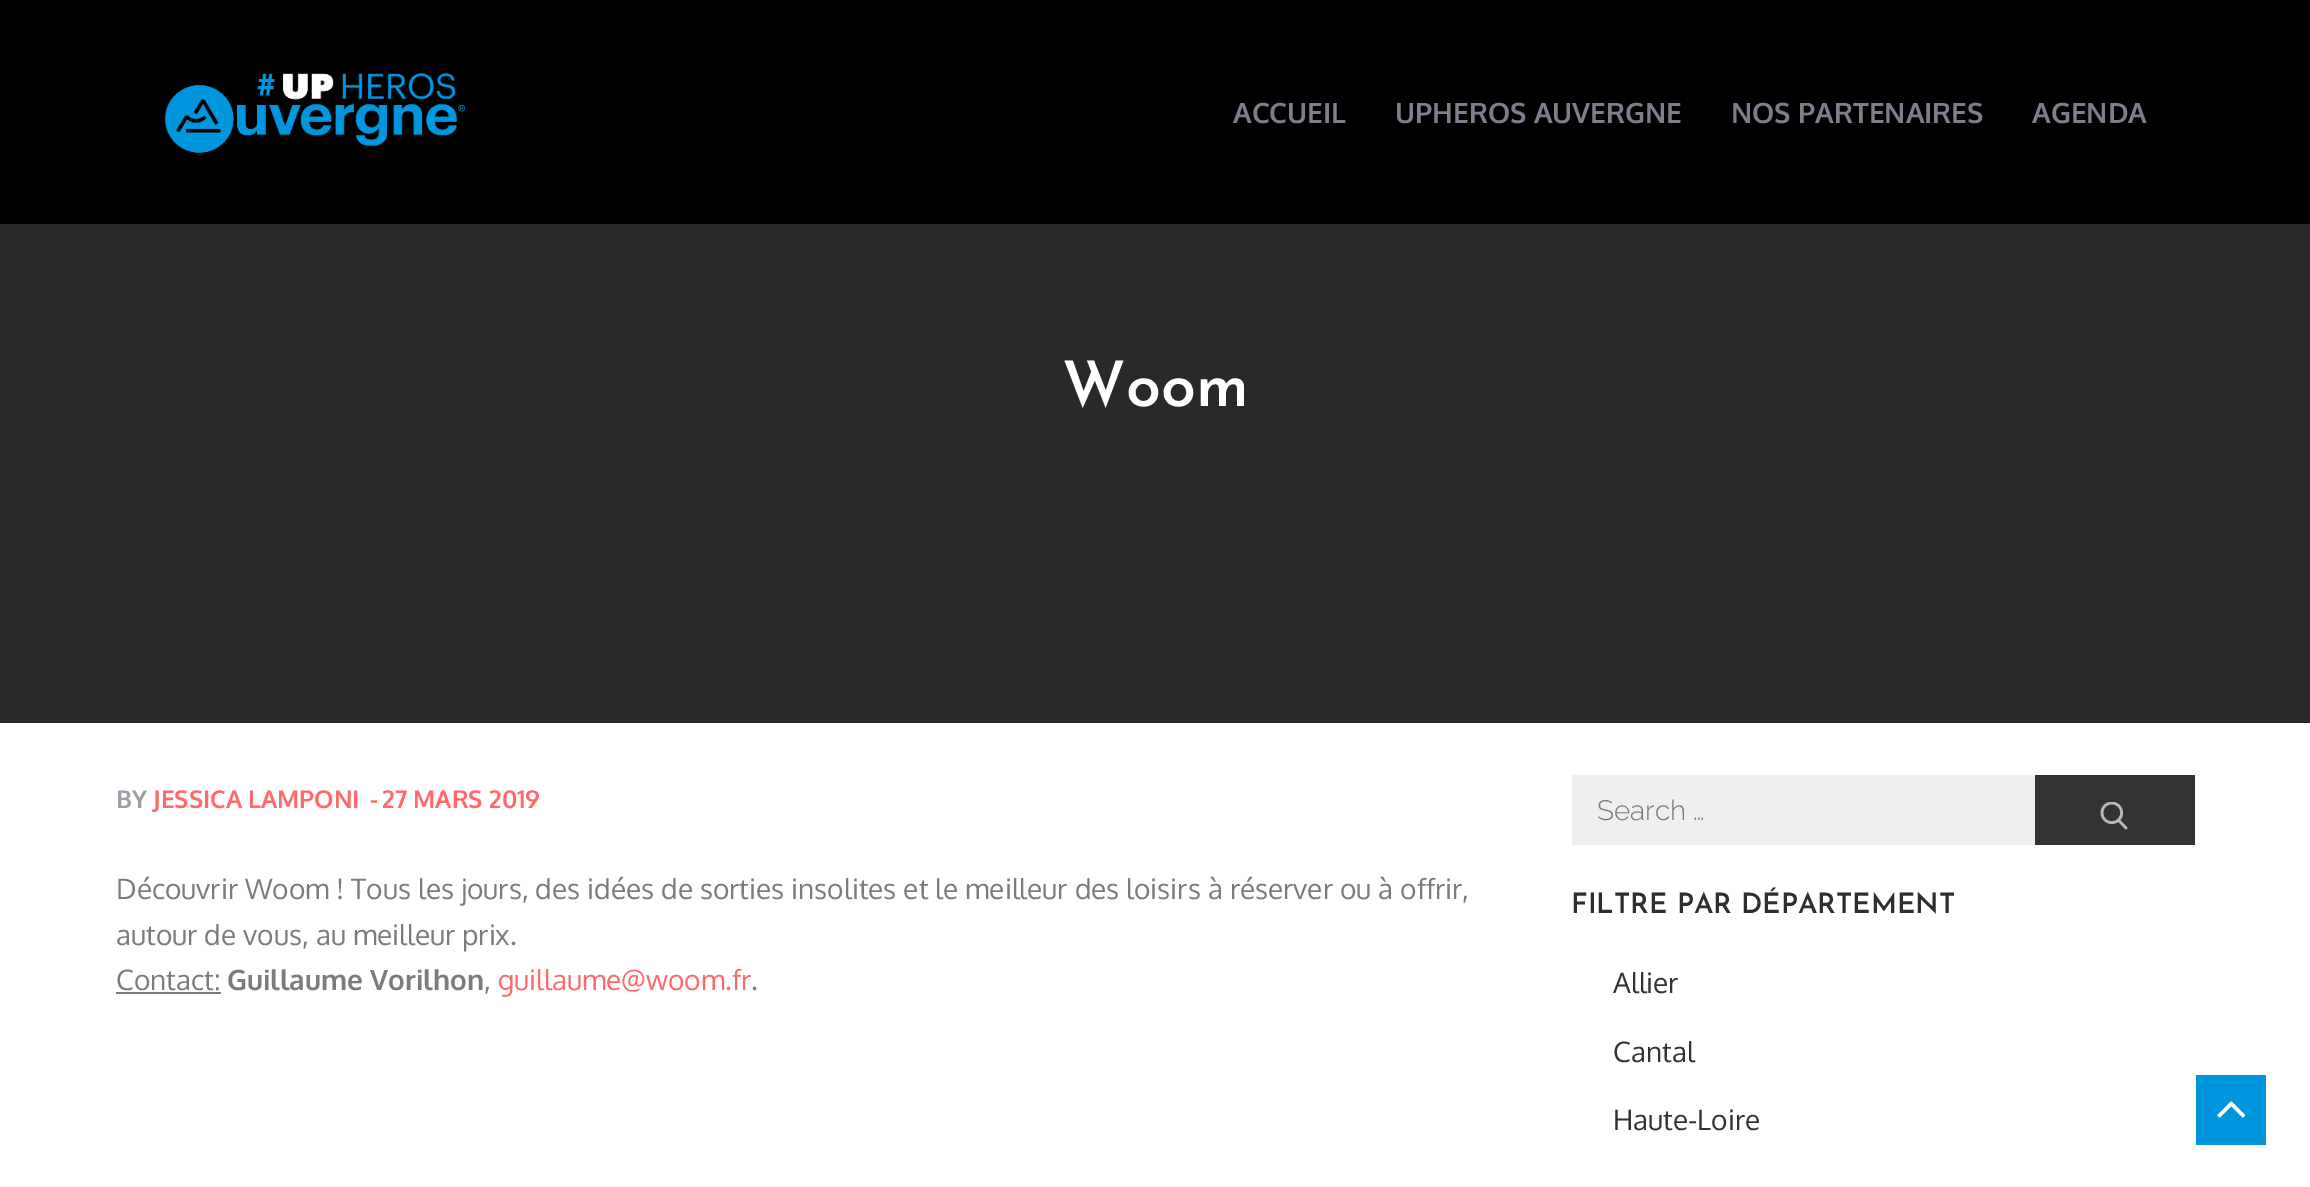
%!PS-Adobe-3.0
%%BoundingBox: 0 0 2310 1187
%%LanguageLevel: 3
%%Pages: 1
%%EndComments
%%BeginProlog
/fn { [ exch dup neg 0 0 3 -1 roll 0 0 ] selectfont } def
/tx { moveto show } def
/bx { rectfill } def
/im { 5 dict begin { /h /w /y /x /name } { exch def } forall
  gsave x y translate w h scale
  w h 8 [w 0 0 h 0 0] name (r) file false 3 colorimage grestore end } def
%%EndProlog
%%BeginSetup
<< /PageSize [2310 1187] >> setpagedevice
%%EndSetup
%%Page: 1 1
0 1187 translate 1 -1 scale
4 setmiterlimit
1 setgray
0 0 2310 1187 bx
0 setgray
0 0 2310 224 bx
(image0.raw) 164 73 301 80 im
/Oxygen-Bold 28 fn
0.502 0.494 0.549 setrgbcolor
(ACCUEIL) 1233 123 tx
(UPHEROS AUVERGNE) 1395 123 tx
(NOS PARTENAIRES) 1731 123 tx
(AGENDA) 2032 123 tx
0.161 setgray
0 224 2310 499 bx
/JosefinSans-SemiBold 63 fn
1 setgray
(Woom) 1062 406 tx
/Oxygen-Bold 24.5 fn
0.62 0.616 0.655 setrgbcolor
(BY) 116 808 tx
1 0.412 0.416 setrgbcolor
(JESSICA LAMPONI) 153 808 tx
(-) 370 808 tx
(27 MARS 2019) 382 808 tx
/Oxygen-Regular 28 fn
0.482 setgray
(Découvrir Woom ! Tous les jours, des idées de sorties insolites et le meilleur des loisirs à réserver ou à offrir,) 116 899 tx
(autour de vous, au meilleur prix.) 116 945 tx
(Contact:) 116 990 tx
116 992 105 2 bx
/Oxygen-Bold 28 fn
(Guillaume Vorilhon) 227 990 tx
/Oxygen-Regular 28 fn
(,) 484 990 tx
1 0.412 0.416 setrgbcolor
(guillaume@woom.fr) 498 990 tx
0.482 setgray
(.) 751 990 tx
0.937 setgray
1572 775 463 70 bx
/Raleway-Light 28 fn
0.459 setgray
(Search …) 1597 820 tx
0.2 setgray
2035 775 160 70 bx
(image1.raw) 2100 802 28 28 im
/JosefinSans-SemiBold 28 fn
0.196 0.176 0.176 setrgbcolor
(FILTRE PAR DÉPARTEMENT) 1571 913 tx
/Oxygen-Regular 28 fn
0.2 setgray
(Allier) 1613 993 tx
(Cantal) 1613 1062 tx
(Haute-Loire) 1613 1130 tx
0 0.588 0.871 setrgbcolor
2196 1075 70 70 bx
(image2.raw) 2217 1101 28 17 im
showpage
%%EOF
